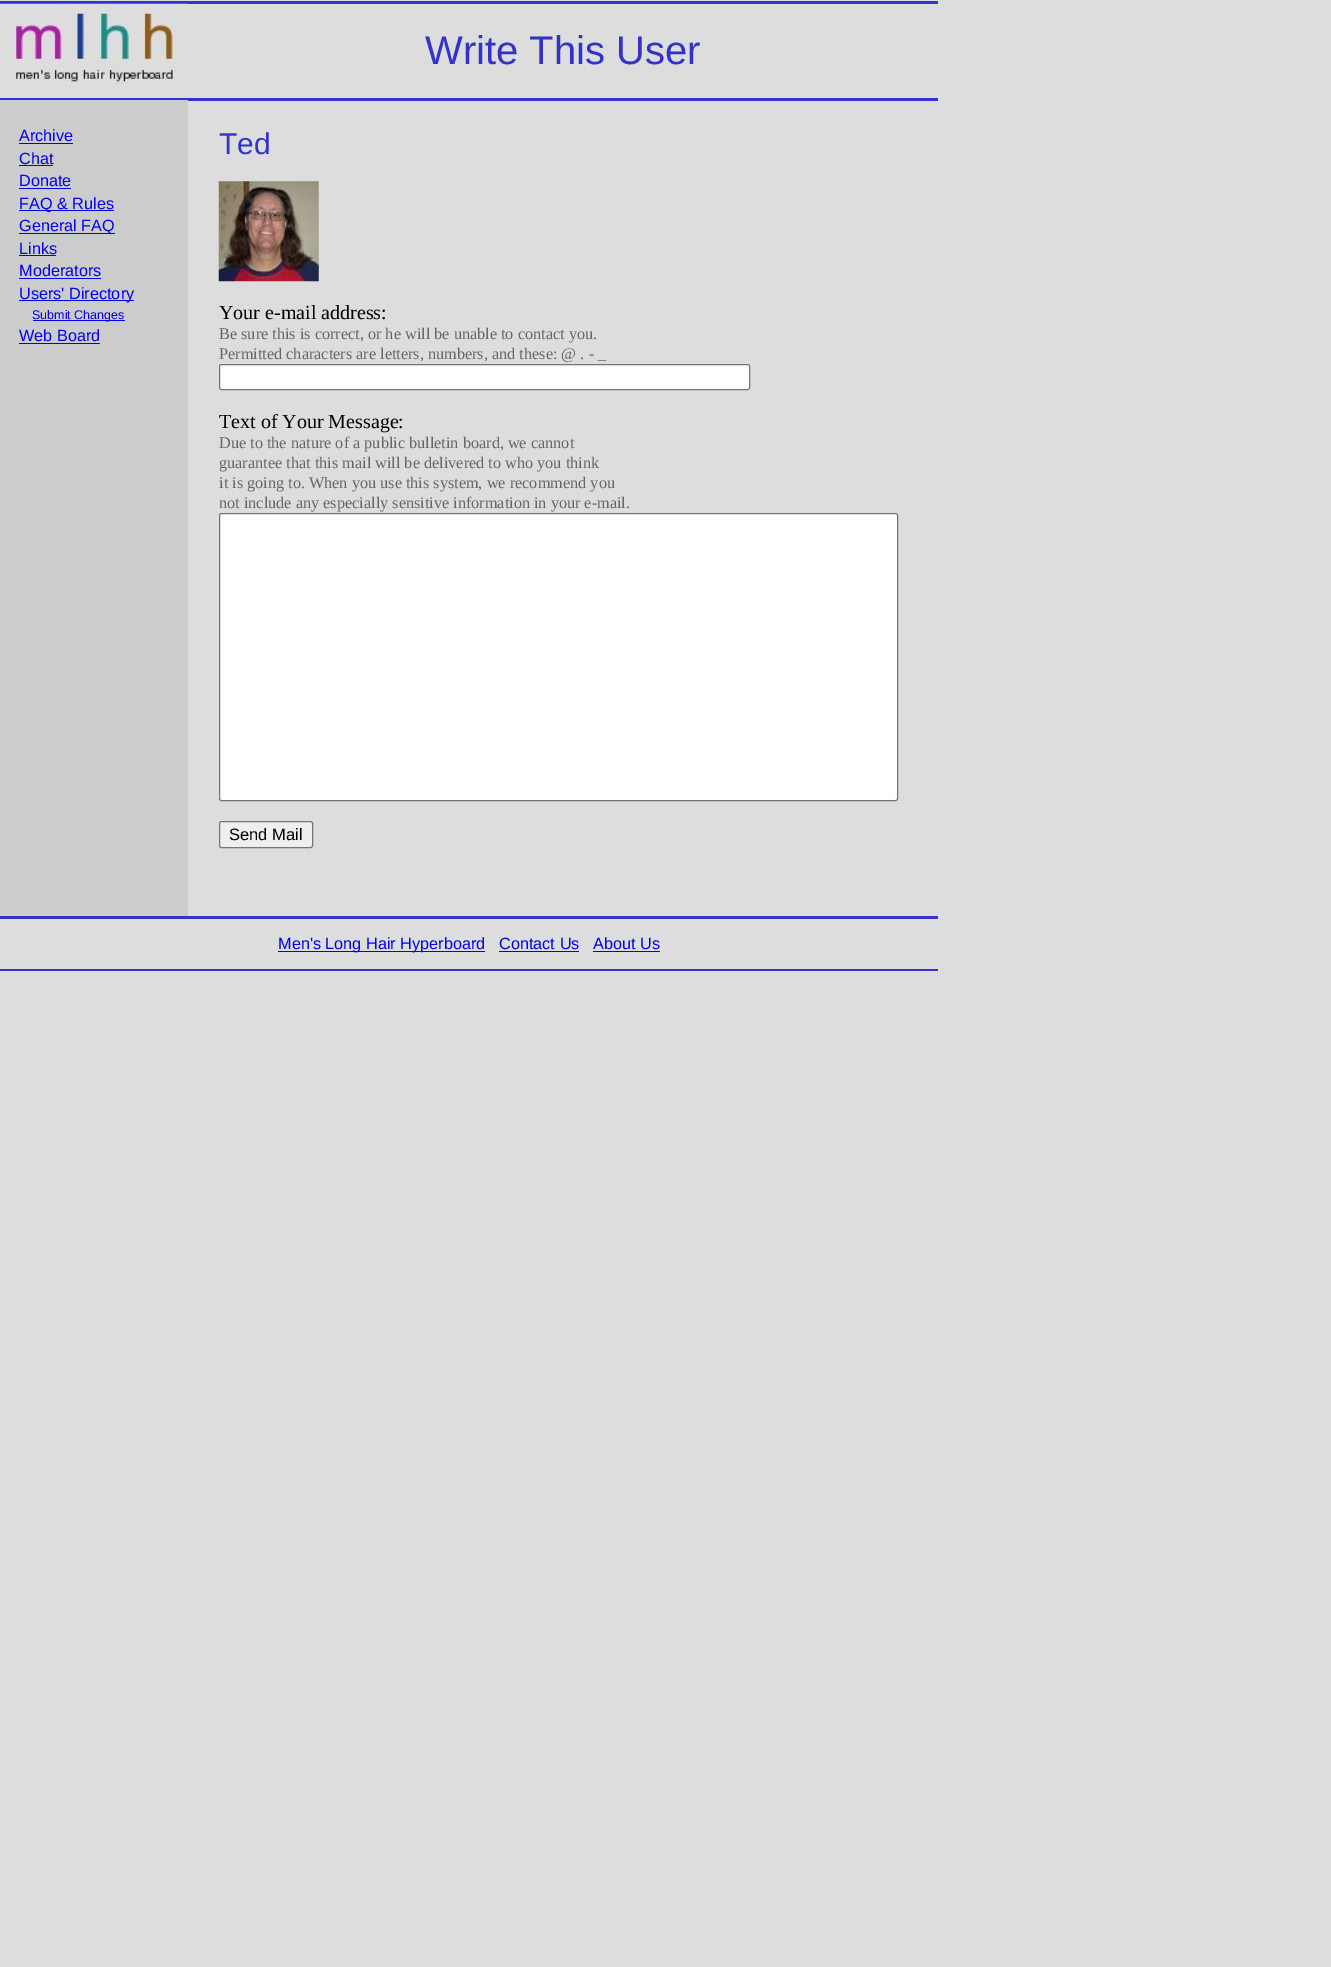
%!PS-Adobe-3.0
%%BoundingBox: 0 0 1331 1967
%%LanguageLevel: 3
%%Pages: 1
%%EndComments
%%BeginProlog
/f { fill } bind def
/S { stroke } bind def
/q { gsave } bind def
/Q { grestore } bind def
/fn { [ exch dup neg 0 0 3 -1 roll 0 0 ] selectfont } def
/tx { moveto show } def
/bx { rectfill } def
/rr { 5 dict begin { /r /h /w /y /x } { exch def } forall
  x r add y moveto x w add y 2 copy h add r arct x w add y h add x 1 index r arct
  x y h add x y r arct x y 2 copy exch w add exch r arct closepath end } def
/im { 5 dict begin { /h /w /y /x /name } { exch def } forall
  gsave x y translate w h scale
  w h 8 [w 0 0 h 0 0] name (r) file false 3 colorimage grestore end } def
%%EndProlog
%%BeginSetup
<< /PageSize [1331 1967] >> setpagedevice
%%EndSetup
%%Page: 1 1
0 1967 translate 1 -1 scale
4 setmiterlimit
0.867 setgray
0 0 1331 1967 bx
0.2 0.2 0.8 setrgbcolor
0 1 938 3 bx
(image0.raw) 0 3 188 81 im
/LiberationSans-Regular 40 fn
(Write This User) 425 64 tx
0 98 938 3 bx
0.8 setgray
0 100 188 816 bx
/LiberationSans-Regular 16.25 fn
0 0 0.933 setrgbcolor
(Archive) 19 141 tx
19 143 54 1 bx
(Chat) 19 164 tx
19 165 34 1 bx
(Donate) 19 186 tx
19 188 52 1 bx
19 210 95 1 bx
(FAQ & Rules) 19 209 tx
19 233 96 1 bx
(General FAQ) 19 231 tx
(Links) 19 254 tx
19 255 37 1 bx
(Moderators) 19 276 tx
19 278 82 1 bx
19 300 115 1 bx
(Users' Directory) 19 299 tx
33 320 92 1 bx
/LiberationSans-Regular 12.5 fn
(Submit Changes) 32 319 tx
/LiberationSans-Regular 16.25 fn
(Web Board) 19 341 tx
19 343 81 1 bx
/LiberationSans-Regular 30 fn
0.2 0.2 0.8 setrgbcolor
(Ted) 219 154 tx
(image1.raw) 218 181 101 101 im
/LiberationSerif-Regular 20 fn
0 setgray
(Your e-mail address:) 219 319 tx
/LiberationSerif-Regular 16.25 fn
0.4 setgray
(Be sure this is correct, or he will be unable to contact you.) 219 339 tx
(Permitted characters are letters, numbers, and these: @ . - _) 219 359 tx
1 setgray
219.5 364.5 530 25 2 rr q f Q
0.463 setgray
S
/LiberationSerif-Regular 20 fn
0 setgray
(Text of Your Message:) 219 428 tx
/LiberationSerif-Regular 16.25 fn
0.4 setgray
(Due to the nature of a public bulletin board, we cannot) 219 448 tx
(guarantee that this mail will be delivered to who you think) 219 468 tx
(it is going to. When you use this system, we recommend you) 219 488 tx
(not include any especially sensitive information in your e-mail.) 219 508 tx
1 setgray
219.5 513.5 678 287 2 rr q f Q
0.463 setgray
S
0.937 setgray
219.5 821.5 93 26 2 rr q f Q
0.463 setgray
S
/LiberationSans-Regular 16.5 fn
0 setgray
(Send Mail) 229 840 tx
0.2 0.2 0.8 setrgbcolor
0 916 938 3 bx
0 0 0.933 setrgbcolor
278 951 207 1 bx
/LiberationSans-Regular 16.25 fn
(Men's Long Hair Hyperboard) 278 949 tx
(Contact Us) 499 949 tx
499 951 80 1 bx
(About Us) 593 949 tx
593 951 67 1 bx
0.2 0.2 0.8 setrgbcolor
0 969 938 2 bx
showpage
%%EOF
